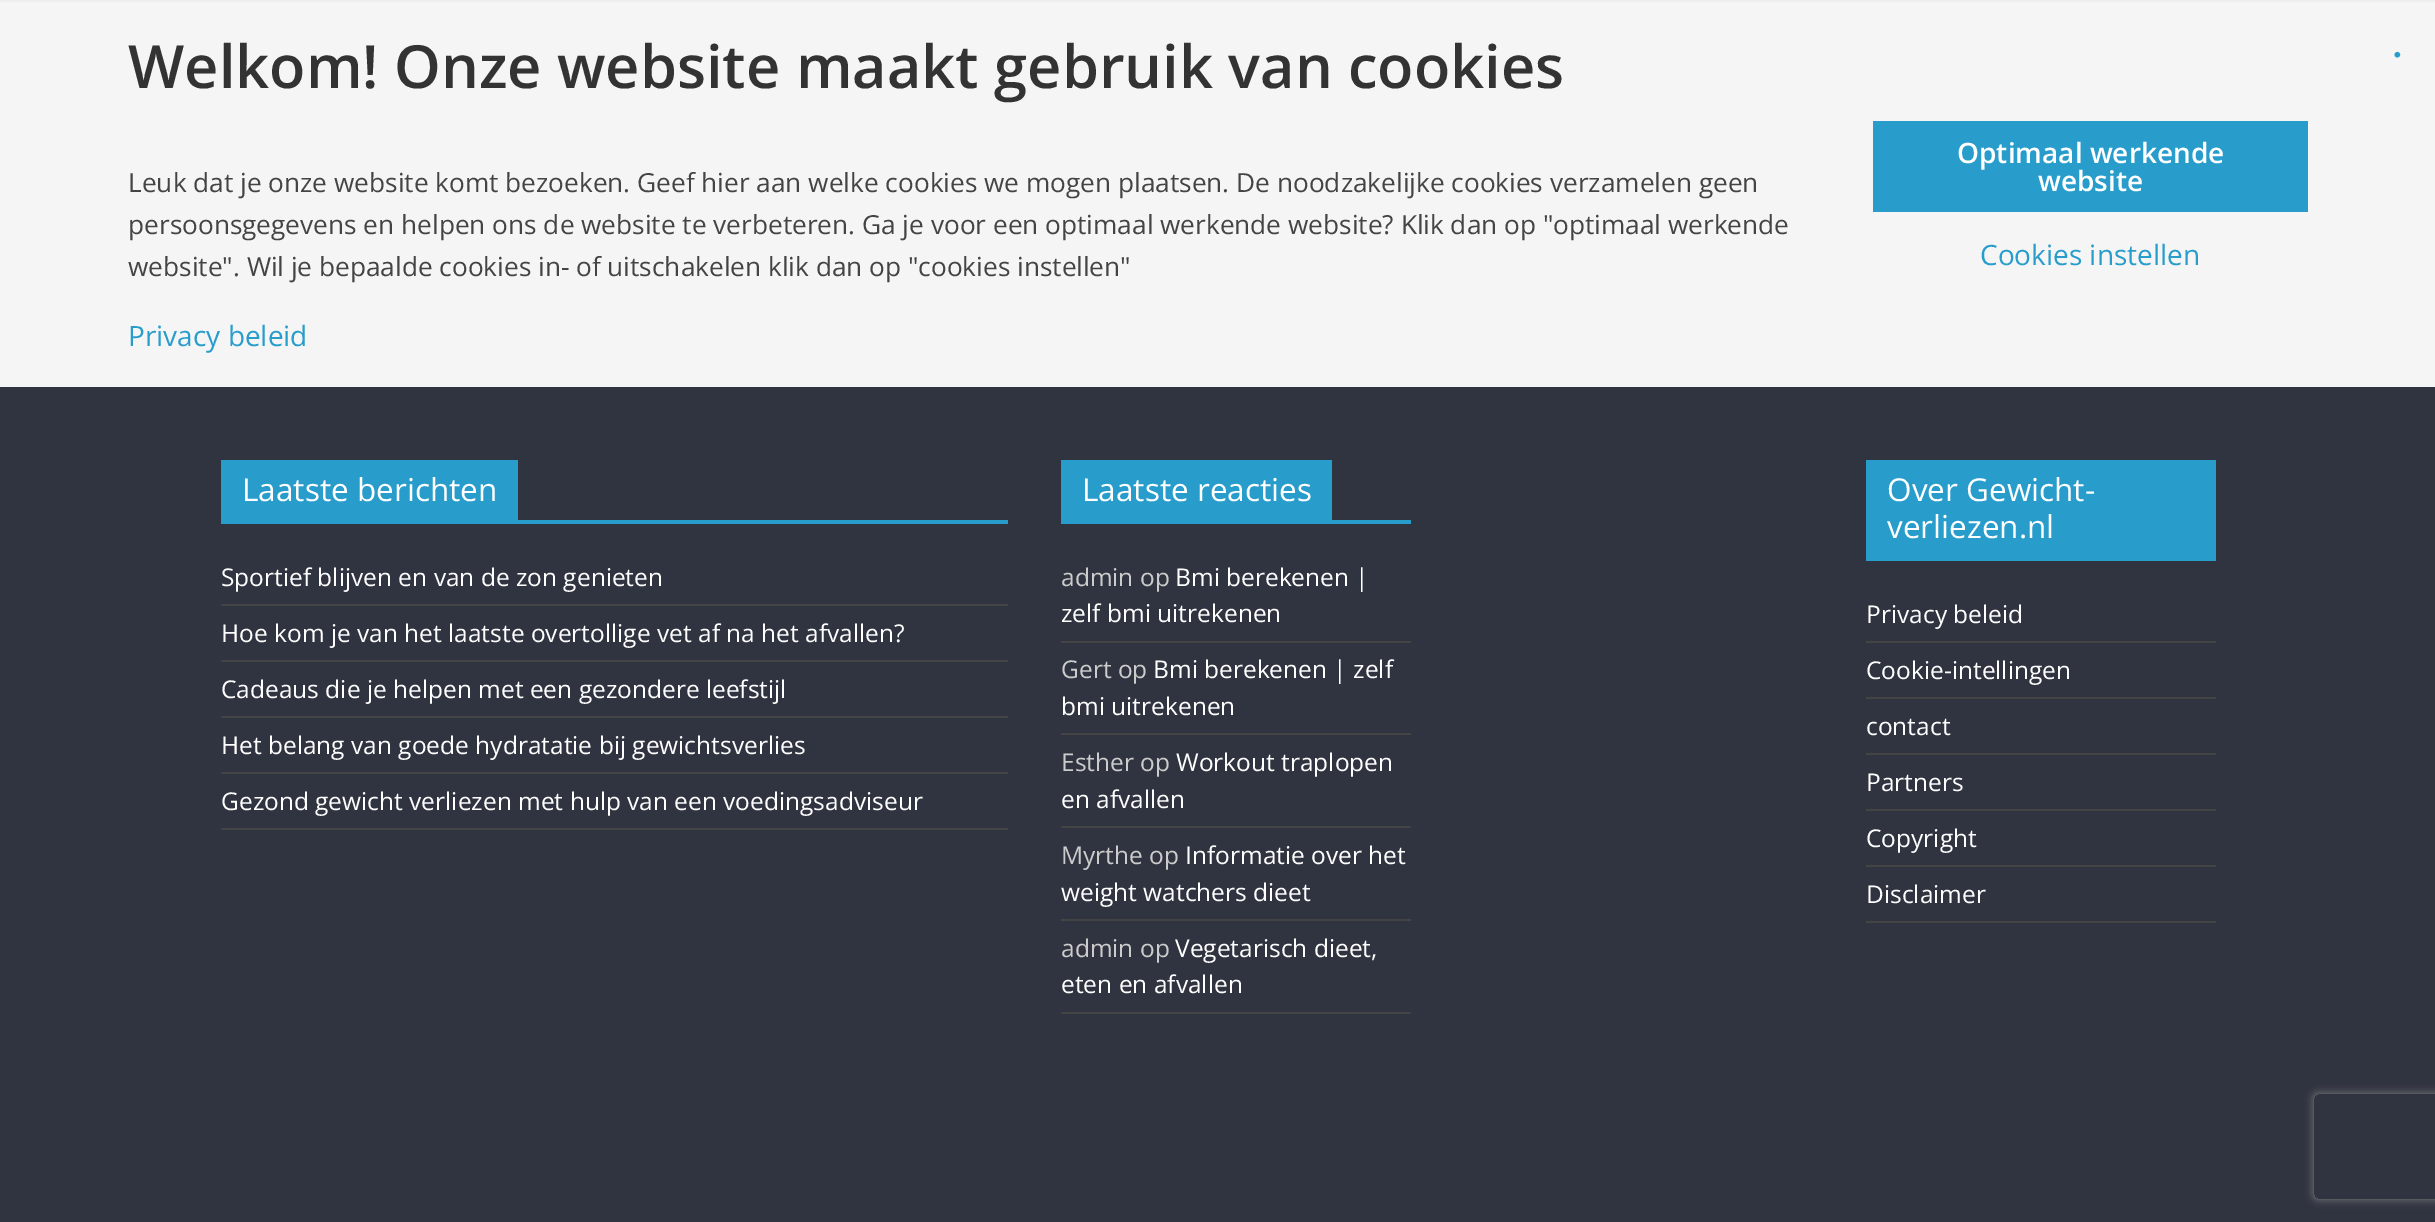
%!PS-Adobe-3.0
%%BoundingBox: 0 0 2435 1222
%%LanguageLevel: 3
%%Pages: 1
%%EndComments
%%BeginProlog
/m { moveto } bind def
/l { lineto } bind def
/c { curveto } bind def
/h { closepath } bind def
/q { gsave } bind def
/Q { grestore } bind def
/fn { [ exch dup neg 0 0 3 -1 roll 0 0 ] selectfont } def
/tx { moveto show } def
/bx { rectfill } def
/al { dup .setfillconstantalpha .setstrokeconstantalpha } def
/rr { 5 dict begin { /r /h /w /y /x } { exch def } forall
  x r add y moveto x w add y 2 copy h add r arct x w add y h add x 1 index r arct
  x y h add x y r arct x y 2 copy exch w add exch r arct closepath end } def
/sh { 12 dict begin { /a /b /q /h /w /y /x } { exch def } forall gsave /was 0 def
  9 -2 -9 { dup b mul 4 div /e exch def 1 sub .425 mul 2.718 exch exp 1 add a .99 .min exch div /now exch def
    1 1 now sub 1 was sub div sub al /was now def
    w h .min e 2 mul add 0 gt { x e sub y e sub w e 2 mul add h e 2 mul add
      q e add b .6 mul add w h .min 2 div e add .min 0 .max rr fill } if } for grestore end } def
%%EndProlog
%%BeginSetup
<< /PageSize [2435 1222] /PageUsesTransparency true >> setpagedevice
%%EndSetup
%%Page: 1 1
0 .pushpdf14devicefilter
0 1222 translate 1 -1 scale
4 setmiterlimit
0.188 0.204 0.251 setrgbcolor
0 0 2435 1222 bx
0.961 setgray
0 2 2435 385 bx
0.933 setgray
0 0 2435 2 bx
/OpenSans-SemiBold 59.5 fn
0.2 setgray
(Welkom! Onze website maakt gebruik van cookies) 128 88 tx
/LiberationSerif-Bold 35 fn
0.157 0.616 0.8 setrgbcolor
(.) 2393 57 tx
/OpenSans-Regular 26.25 fn
0.267 setgray
(Leuk dat je onze website komt bezoeken. Geef hier aan welke cookies we mogen plaatsen. De noodzakelijke cookies verzamelen geen) 128 192 tx
(persoonsgegevens en helpen ons de website te verbeteren. Ga je voor een optimaal werkende website? Klik dan op "optimaal werkende) 128 234 tx
(website". Wil je bepaalde cookies in- of uitschakelen klik dan op "cookies instellen") 128 276 tx
/OpenSans-Regular 28 fn
0.157 0.616 0.8 setrgbcolor
(Privacy beleid) 128 346 tx
1873 121 435 91 bx
/OpenSans-SemiBold 28 fn
1 setgray
(Optimaal werkende) 1957 163 tx
(website) 2038 191 tx
/OpenSans-Regular 28 fn
0.157 0.616 0.8 setrgbcolor
(Cookies instellen) 1980 265 tx
221 520 787 4 bx
221 460 297 60 bx
/OpenSans-Regular 31.5 fn
1 setgray
(Laatste berichten) 242 501 tx
0.267 setgray
221 604 787 2 bx
/OpenSans-Regular 24.5 fn
1 setgray
(Sportief blijven en van de zon genieten) 221 586 tx
0.267 setgray
221 660 787 2 bx
1 setgray
(Hoe kom je van het laatste overtollige vet af na het afvallen?) 221 642 tx
0.267 setgray
221 716 787 2 bx
1 setgray
(Cadeaus die je helpen met een gezondere leefstijl) 221 698 tx
0.267 setgray
221 772 787 2 bx
1 setgray
(Het belang van goede hydratatie bij gewichtsverlies) 221 754 tx
0.267 setgray
221 828 787 2 bx
1 setgray
(Gezond gewicht verliezen met hulp van een voedingsadviseur) 221 810 tx
0.157 0.616 0.8 setrgbcolor
1061 520 350 4 bx
1061 460 271 60 bx
/OpenSans-Regular 31.5 fn
1 setgray
(Laatste reacties) 1082 501 tx
0.267 setgray
1061 641 350 2 bx
/OpenSans-Regular 24.5 fn
0.8 setgray
(admin op) 1061 586 tx
1 setgray
(Bmi berekenen |) 1175 586 tx
(zelf bmi uitrekenen) 1061 622 tx
0.267 setgray
1061 733 350 2 bx
0.8 setgray
(Gert op) 1061 678 tx
1 setgray
(Bmi berekenen | zelf) 1153 678 tx
(bmi uitrekenen) 1061 715 tx
0.267 setgray
1061 826 350 2 bx
0.8 setgray
(Esther op) 1061 771 tx
1 setgray
(Workout traplopen) 1176 771 tx
(en afvallen) 1061 808 tx
0.267 setgray
1061 919 350 2 bx
0.8 setgray
(Myrthe op) 1061 864 tx
1 setgray
(Informatie over het) 1185 864 tx
(weight watchers dieet) 1061 901 tx
0.267 setgray
1061 1012 350 2 bx
0.8 setgray
(admin op) 1061 957 tx
1 setgray
(Vegetarisch dieet,) 1175 957 tx
(eten en afvallen) 1061 993 tx
0.157 0.616 0.8 setrgbcolor
1866 460 350 101 bx
/OpenSans-Regular 31.5 fn
1 setgray
(Over Gewicht-) 1887 501 tx
(verliezen.nl) 1887 538 tx
0.267 setgray
1866 641 350 2 bx
/OpenSans-Regular 24.5 fn
1 setgray
(Privacy beleid) 1866 623 tx
0.267 setgray
1866 697 350 2 bx
1 setgray
(Cookie-intellingen) 1866 679 tx
0.267 setgray
1866 753 350 2 bx
1 setgray
(contact) 1866 735 tx
0.267 setgray
1866 809 350 2 bx
1 setgray
(Partners) 1866 791 tx
0.267 setgray
1866 865 350 2 bx
1 setgray
(Copyright) 1866 847 tx
0.267 setgray
1866 921 350 2 bx
1 setgray
(Disclaimer) 1866 903 tx
q
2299 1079 m 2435 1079 l 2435 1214 l 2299 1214 l h 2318 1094 m 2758 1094 l 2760 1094 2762 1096 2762 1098 c 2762 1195 l 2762 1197 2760 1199 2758 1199 c 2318 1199 l 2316 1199 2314 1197 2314 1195 c 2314 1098 l 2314 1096 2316 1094 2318 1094 c h eoclip newpath
0.502 setgray
2314 1094 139 105 4 4.5 1 sh
Q
.poppdf14devicefilter showpage
%%EOF
